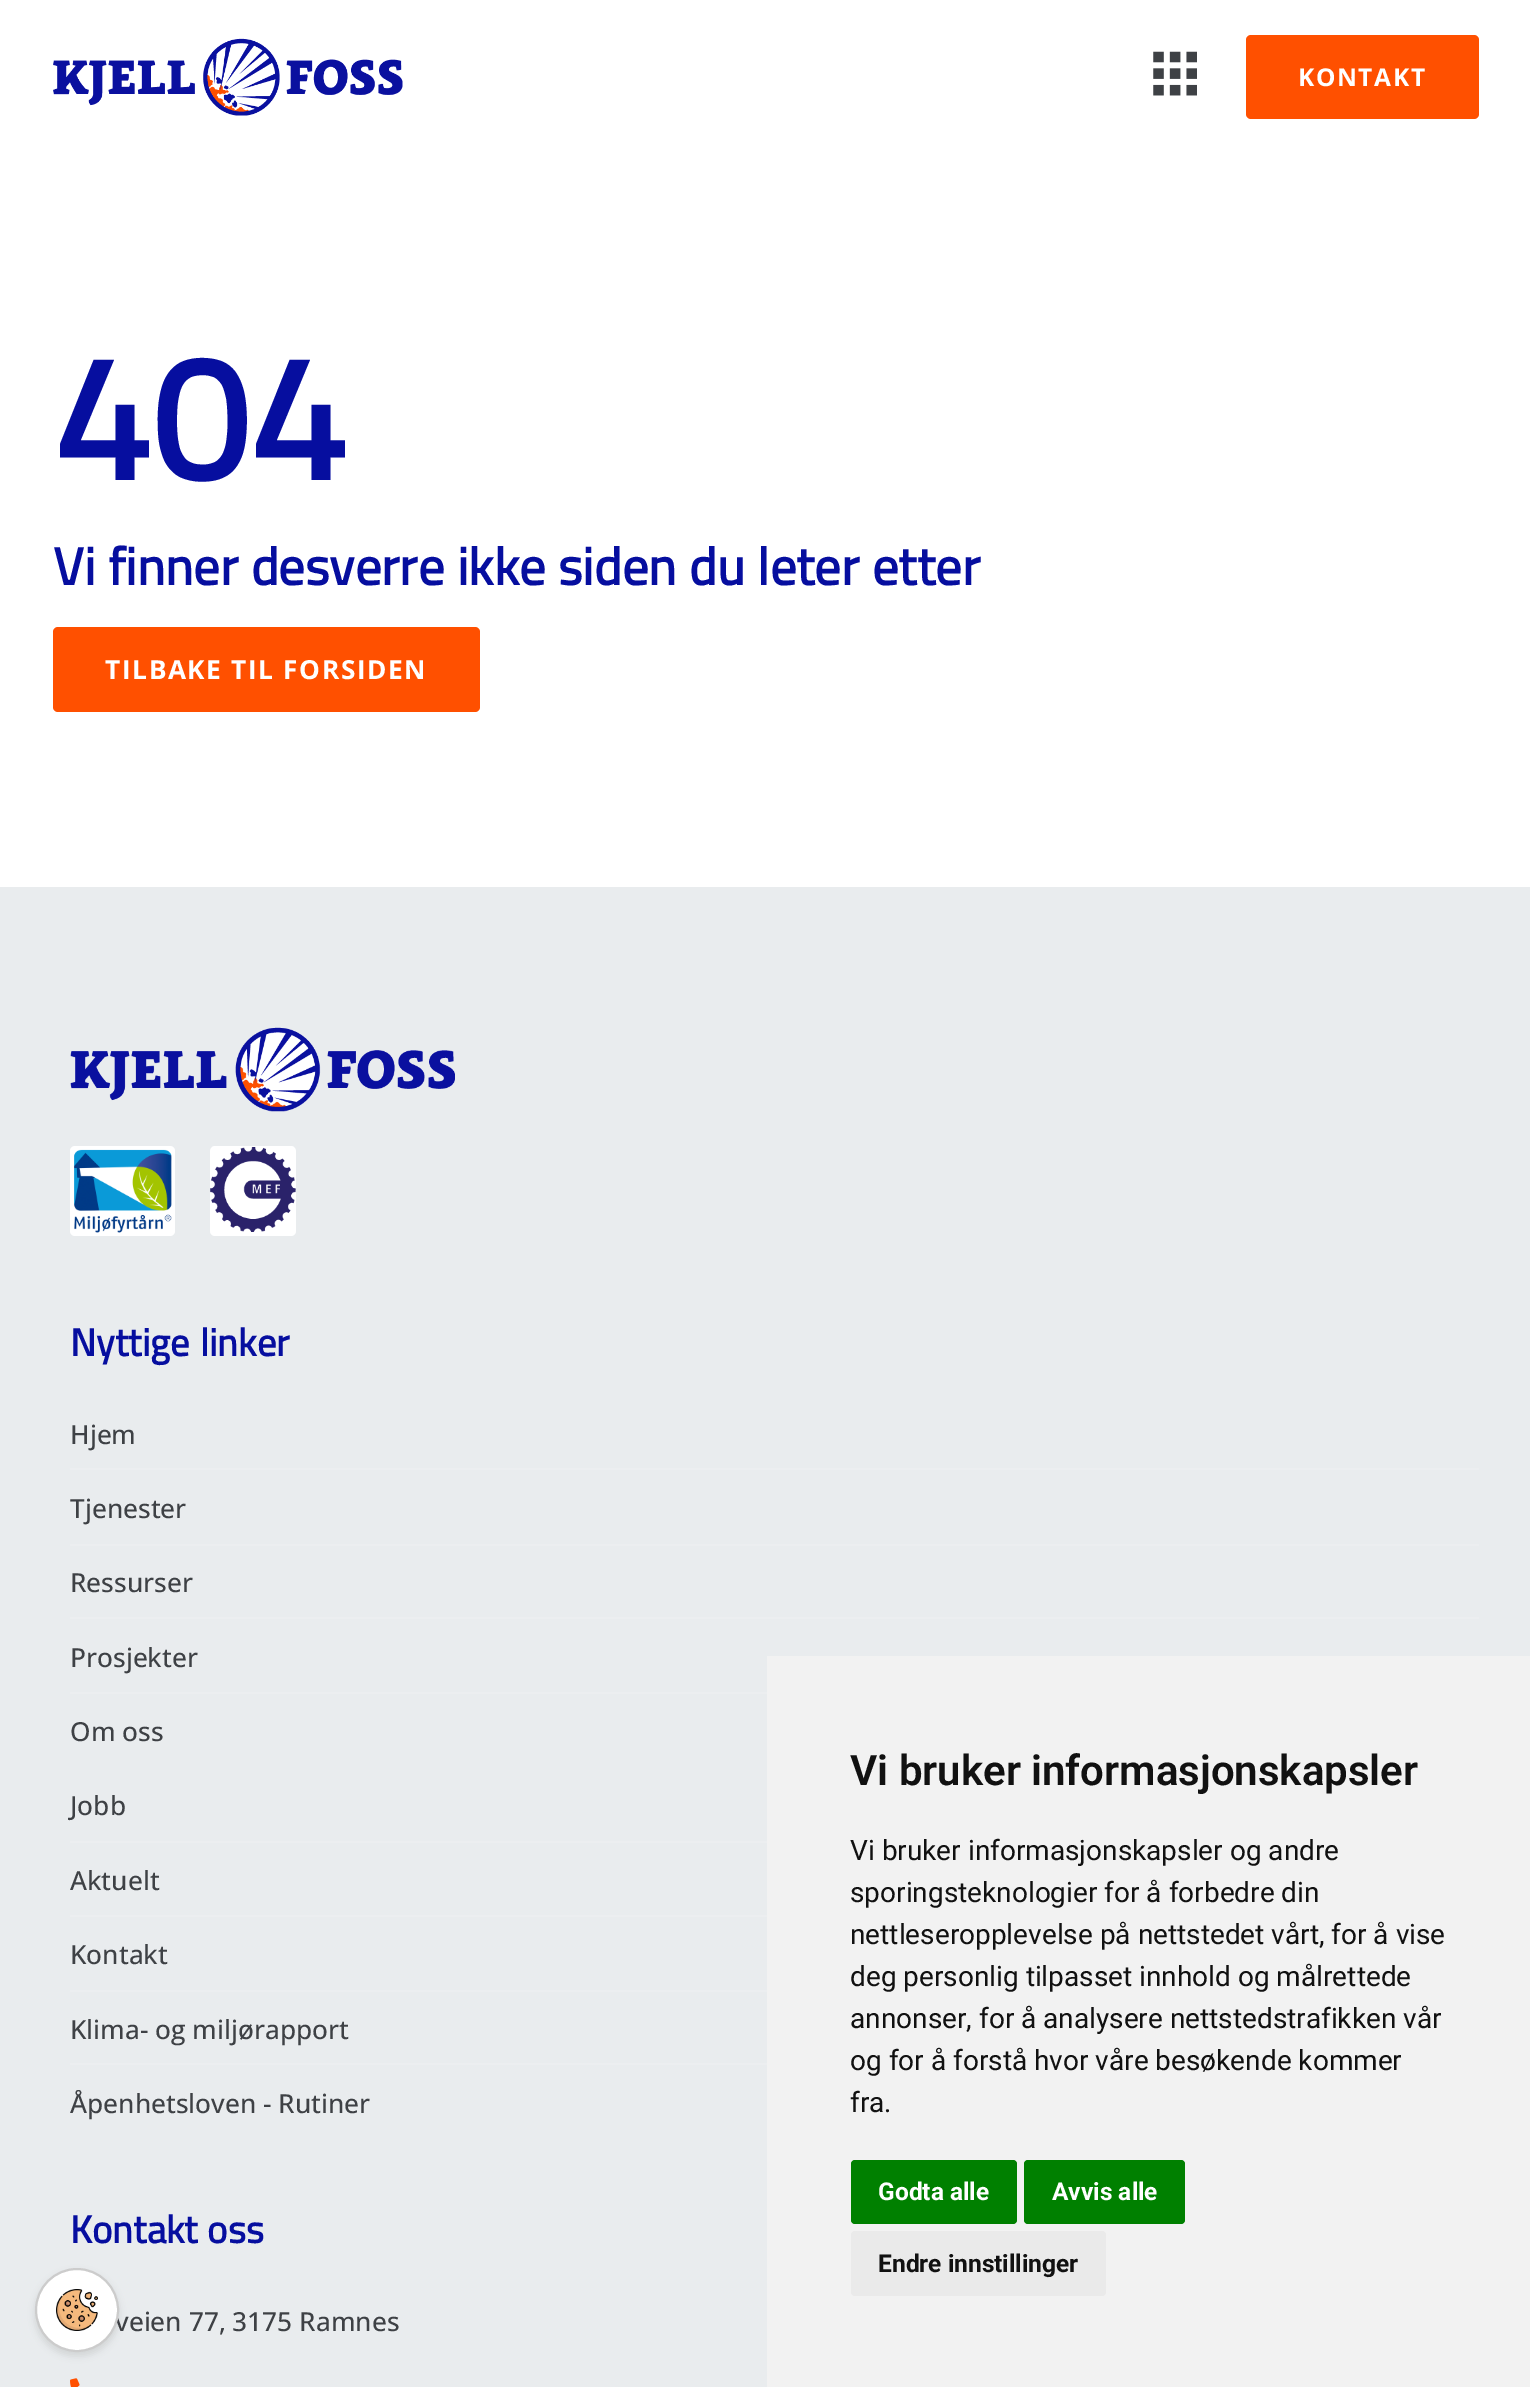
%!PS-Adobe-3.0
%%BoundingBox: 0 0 1530 2387
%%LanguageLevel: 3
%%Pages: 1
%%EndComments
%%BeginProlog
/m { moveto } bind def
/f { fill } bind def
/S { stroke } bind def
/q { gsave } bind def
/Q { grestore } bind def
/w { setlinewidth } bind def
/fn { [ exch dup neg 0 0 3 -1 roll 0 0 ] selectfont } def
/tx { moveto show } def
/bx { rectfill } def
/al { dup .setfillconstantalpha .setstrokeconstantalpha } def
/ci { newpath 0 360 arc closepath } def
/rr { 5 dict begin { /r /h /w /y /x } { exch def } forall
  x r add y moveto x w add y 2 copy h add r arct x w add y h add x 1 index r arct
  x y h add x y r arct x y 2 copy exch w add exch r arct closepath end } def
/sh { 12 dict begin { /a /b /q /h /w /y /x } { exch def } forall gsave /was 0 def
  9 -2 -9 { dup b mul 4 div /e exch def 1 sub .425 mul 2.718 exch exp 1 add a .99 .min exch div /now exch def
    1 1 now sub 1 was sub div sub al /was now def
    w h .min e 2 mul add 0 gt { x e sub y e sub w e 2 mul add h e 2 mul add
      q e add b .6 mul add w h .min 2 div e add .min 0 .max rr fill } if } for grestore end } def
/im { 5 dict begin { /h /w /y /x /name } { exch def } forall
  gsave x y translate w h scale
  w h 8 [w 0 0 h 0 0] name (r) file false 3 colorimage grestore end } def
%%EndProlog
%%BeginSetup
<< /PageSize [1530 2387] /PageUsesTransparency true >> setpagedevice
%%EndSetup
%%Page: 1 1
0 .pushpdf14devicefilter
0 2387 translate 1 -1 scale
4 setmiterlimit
1 setgray
0 0 1530 2387 bx
(image0.raw) 53 38 350 78 im
(image1.raw) 1153 51 44 45 im
1 0.314 0 setrgbcolor
1246 35 233 84 5 rr f
/OpenSans-Bold 24.5 fn
1 setgray
1298 86 m 1.6 0 (KONTAKT) ashow
/Cairo-Bold 175 fn
0.024 0.055 0.624 setrgbcolor
(404) 53 480 tx
/Cairo-Bold 52.5 fn
53 585 m 1 0 32 (Vi finner desverre ikke siden du leter etter) widthshow
1 0.314 0 setrgbcolor
53 627 427 85 5 rr f
/OpenSans-Bold 26.25 fn
1 setgray
105 679 m 1.6 0 (TILBAKE TIL FORSIDEN) ashow
0.914 0.925 0.933 setrgbcolor
0 887 1530 1500 bx
(image2.raw) 70 1027 385 85 im
1 setgray
70 1146 105 90 5 rr f
(image3.raw) 74 1149 98 84 im
210 1146 86 90 5 rr f
(image4.raw) 210 1147 86 85 im
/Cairo-Bold 38.5 fn
0.024 0.055 0.624 setrgbcolor
70 1356 m 2 0 32 (Nyttige linker) widthshow
/OpenSans-Medium 26.25 fn
0.243 0.255 0.271 setrgbcolor
(Hjem) 70 1444 tx
0.925 0.933 0.941 setrgbcolor
70 1468 1409 2 bx
0.243 0.255 0.271 setrgbcolor
(Tjenester) 70 1518 tx
0.925 0.933 0.941 setrgbcolor
70 1544 1409 2 bx
0.243 0.255 0.271 setrgbcolor
(Ressurser) 70 1592 tx
0.925 0.933 0.941 setrgbcolor
70 1617 1409 2 bx
0.243 0.255 0.271 setrgbcolor
(Prosjekter) 70 1667 tx
0.925 0.933 0.941 setrgbcolor
70 1692 697 2 bx
0.243 0.255 0.271 setrgbcolor
(Om oss) 70 1741 tx
(Jobb) 70 1815 tx
0.925 0.933 0.941 setrgbcolor
70 1841 697 2 bx
0.243 0.255 0.271 setrgbcolor
(Aktuelt) 70 1890 tx
0.925 0.933 0.941 setrgbcolor
70 1915 697 2 bx
0.243 0.255 0.271 setrgbcolor
(Kontakt) 70 1964 tx
0.925 0.933 0.941 setrgbcolor
70 1990 697 2 bx
0.243 0.255 0.271 setrgbcolor
(Klima- og miljørapport) 70 2039 tx
0.925 0.933 0.941 setrgbcolor
70 2063 697 2 bx
0.243 0.255 0.271 setrgbcolor
(Åpenhetsloven - Rutiner) 70 2113 tx
/Cairo-Bold 38.5 fn
0.024 0.055 0.624 setrgbcolor
70 2243 m 1 0 32 (Kontakt oss) widthshow
/OpenSans-Medium 26.25 fn
0.243 0.255 0.271 setrgbcolor
(veien 77, 3175 Ramnes) 115 2331 tx
(image5.raw) 70 2378 10 9 im
0.949 setgray
767 1656 763 731 bx
/Roboto-SemiBold 42 fn
0.067 setgray
(Vi bruker informasjonskapsler) 850 1785 tx
/Roboto-Regular 28 fn
(Vi bruker informasjonskapsler og andre) 850 1860 tx
(sporingsteknologier for å forbedre din) 850 1902 tx
(nettleseropplevelse på nettstedet vårt, for å vise) 850 1944 tx
(deg personlig tilpasset innhold og målrettede) 850 1986 tx
(annonser, for å analysere nettstedstrafikken vår) 850 2028 tx
(og for å forstå hvor våre besøkende kommer) 850 2070 tx
(fra.) 850 2112 tx
0 0.502 0 setrgbcolor
851 2160 166 64 4 rr f
/Roboto-Bold 24.5 fn
1 setgray
(Godta alle) 878 2200 tx
0 0.502 0 setrgbcolor
1024 2160 161 64 4 rr f
1 setgray
(Avvis alle) 1052 2200 tx
0.918 setgray
851 2231 255 65 4 rr f
0.067 setgray
(Endre innstillinger) 878 2272 tx
0 setgray
35 2272 84 84 42 3.5 0.1 sh
1 setgray
77 2310 41 ci q f Q
0.8 setgray
2 w
S
(image6.raw) 56 2289 42 42 im
.poppdf14devicefilter showpage
%%EOF
